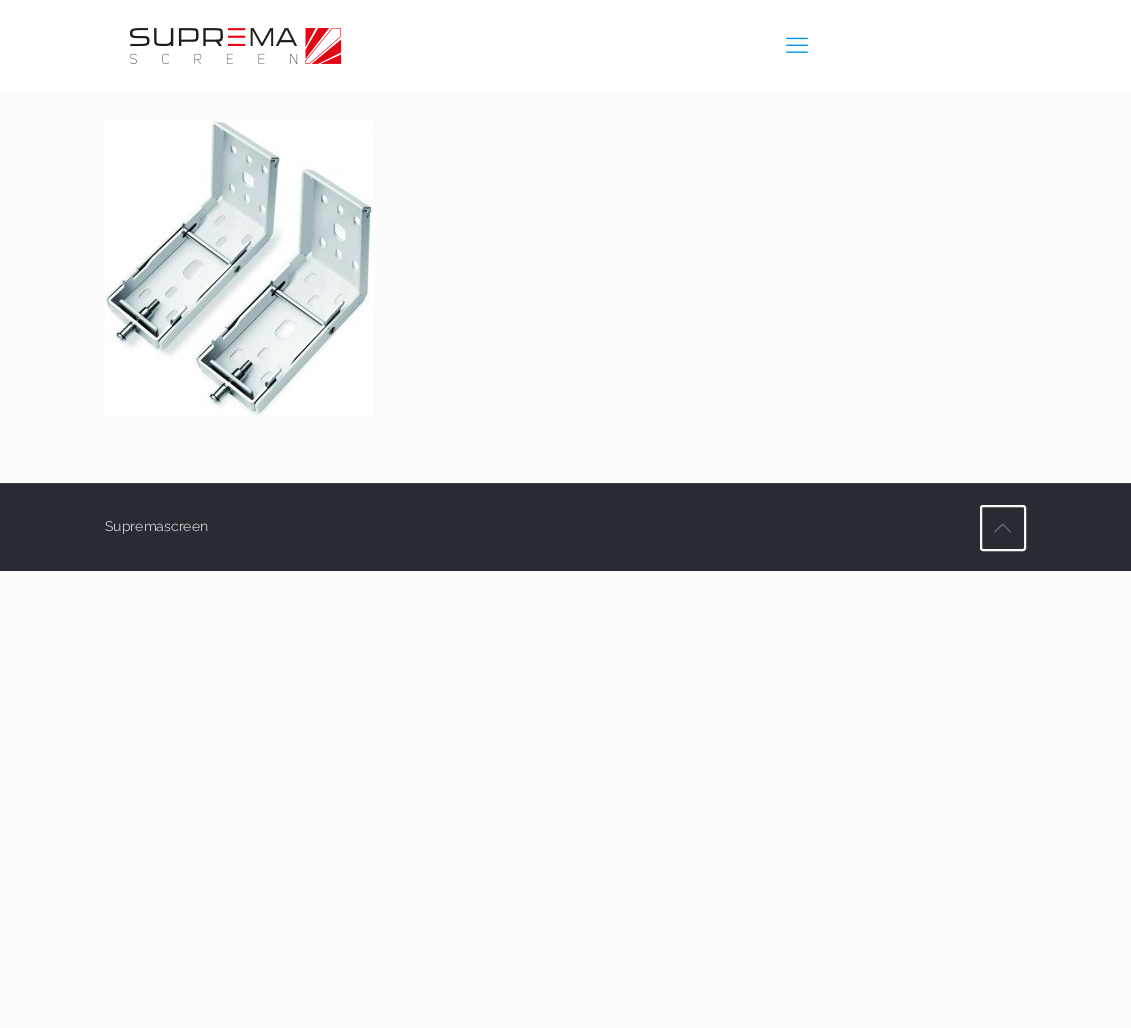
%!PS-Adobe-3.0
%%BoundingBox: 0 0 1131 1028
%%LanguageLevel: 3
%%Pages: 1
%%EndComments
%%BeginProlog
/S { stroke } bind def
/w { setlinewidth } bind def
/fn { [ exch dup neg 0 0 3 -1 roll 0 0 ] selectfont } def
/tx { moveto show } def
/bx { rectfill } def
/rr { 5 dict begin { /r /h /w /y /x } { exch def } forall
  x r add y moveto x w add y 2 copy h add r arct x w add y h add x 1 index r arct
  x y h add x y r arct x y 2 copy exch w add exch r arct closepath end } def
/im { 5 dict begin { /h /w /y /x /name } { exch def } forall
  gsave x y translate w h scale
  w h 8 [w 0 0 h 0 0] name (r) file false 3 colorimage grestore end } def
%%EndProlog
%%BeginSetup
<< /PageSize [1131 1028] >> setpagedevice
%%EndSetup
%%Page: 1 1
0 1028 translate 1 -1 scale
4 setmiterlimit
0.988 setgray
0 0 1131 1028 bx
1 setgray
0 0 1131 90 bx
(image0.raw) 130 28 211 36 im
(image1.raw) 786 37 22 16 im
(image2.raw) 105 120 269 296 im
0.161 0.169 0.2 setrgbcolor
0 484 1131 87 bx
0.243 0.251 0.278 setrgbcolor
0 483 1131 1 bx
/Raleway-Regular 14 fn
0.8 setgray
(Supremascreen) 105 531 tx
0.969 setgray
2 w
981 506 44 44 2 rr S
(image3.raw) 994 523 18 10 im
showpage
%%EOF
